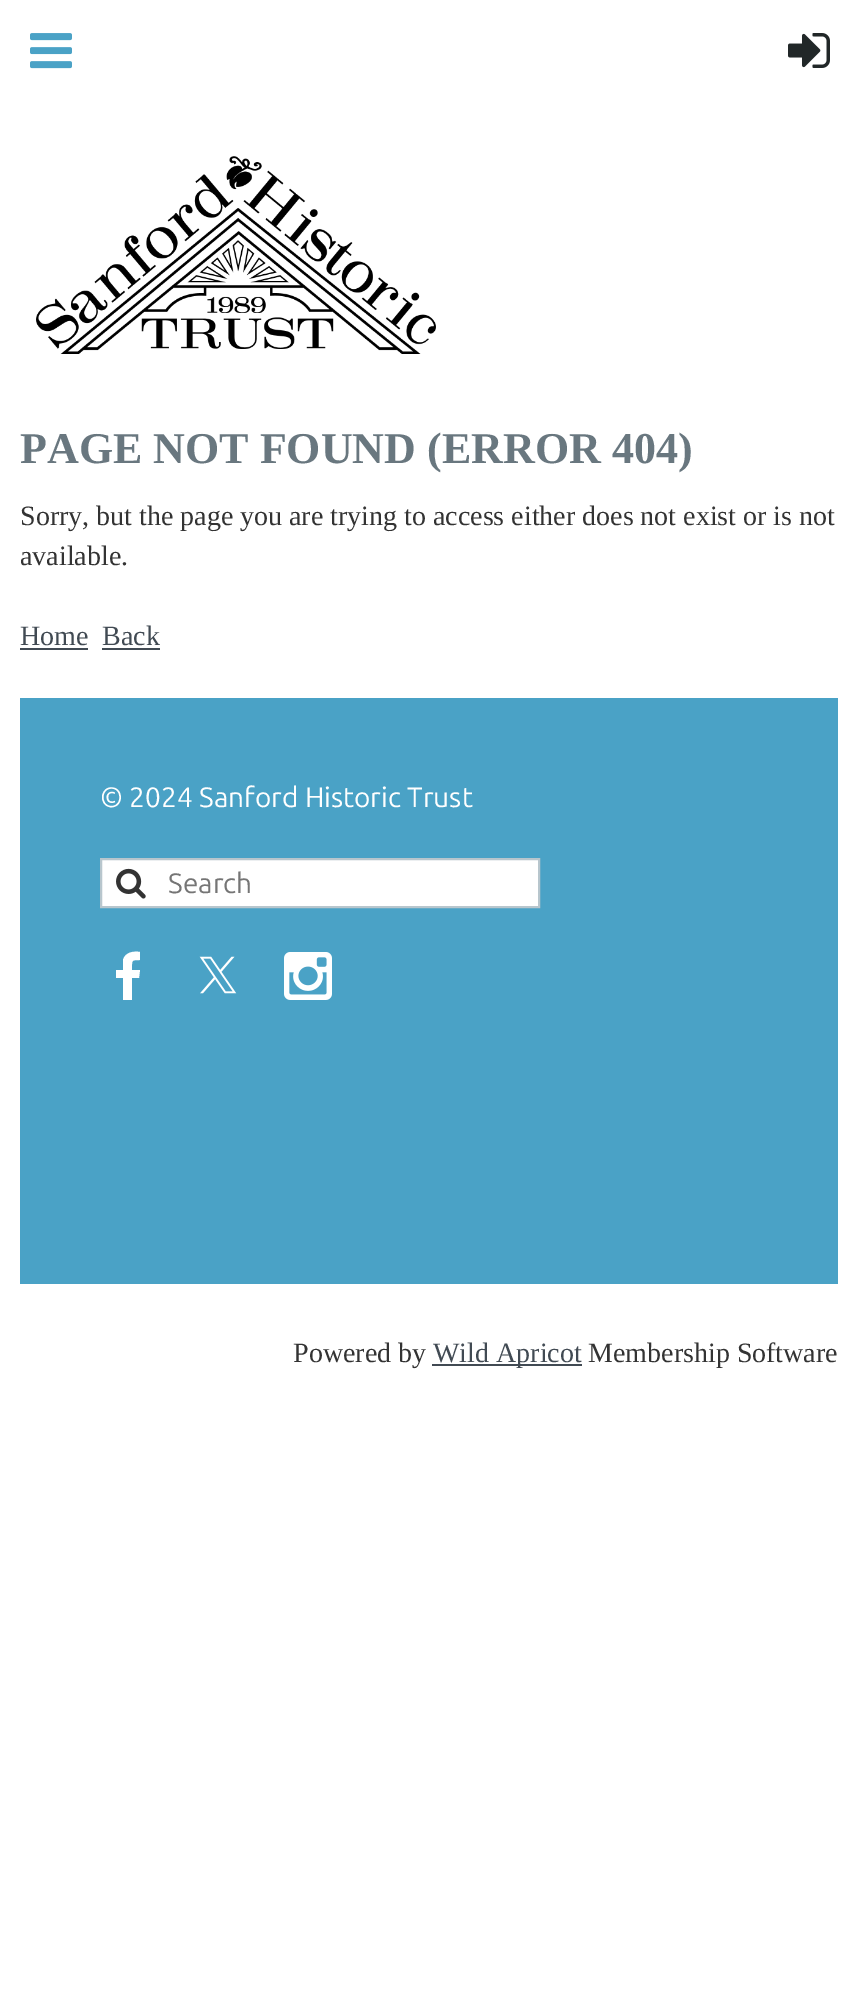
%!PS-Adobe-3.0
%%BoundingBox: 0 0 857 2008
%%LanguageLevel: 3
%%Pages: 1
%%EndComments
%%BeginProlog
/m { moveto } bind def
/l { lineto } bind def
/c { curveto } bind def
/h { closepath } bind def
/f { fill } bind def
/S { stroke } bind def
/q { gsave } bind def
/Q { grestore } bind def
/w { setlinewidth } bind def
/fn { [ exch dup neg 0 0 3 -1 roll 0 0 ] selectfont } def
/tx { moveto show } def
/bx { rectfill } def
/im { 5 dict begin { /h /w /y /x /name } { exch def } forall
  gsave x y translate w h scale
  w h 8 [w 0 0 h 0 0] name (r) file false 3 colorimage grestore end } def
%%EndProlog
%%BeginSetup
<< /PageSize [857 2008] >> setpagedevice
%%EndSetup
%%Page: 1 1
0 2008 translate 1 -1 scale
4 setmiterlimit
1 setgray
0 0 857 2008 bx
(image0.raw) 30 33 42 36 im
(image1.raw) 788 33 42 35 im
(image2.raw) 36 156 400 198 im
/LiberationSerif-Bold 44 fn
0.412 0.467 0.498 setrgbcolor
(PAGE NOT FOUND \(ERROR 404\)) 20 463 tx
/LiberationSerif-Regular 28 fn
0.2 setgray
(Sorry, but the page you are trying to access either does not exist or is not) 20 525 tx
(available.) 20 565 tx
0.255 0.29 0.325 setrgbcolor
(Home) 20 645 tx
20 648 68 2 bx
(Back) 102 645 tx
102 648 58 2 bx
0.29 0.635 0.776 setrgbcolor
20 698 818 586 bx
/Ubuntu-Regular 28 fn
1 setgray
(© 2024 Sanford Historic Trust) 100 807 tx
101 859 m 539 859 l 539 907 l 101 907 l h q f Q
0.722 0.776 0.804 setrgbcolor
2 w
S
(image3.raw) 116 868 30 31 im
0.459 setgray
(Search) 168 893 tx
1 setgray
140 960 m 131 960 132 960 132 970 c 140 970 l 139 978 l 132 978 l 132 1000 l 123 1000 l 123 978 l 116 978 l 116 970 l 123 970 l 123 960 l 125 952 134 951 140 952 c h f
(image4.raw) 199 956 38 38 im
(image5.raw) 284 952 48 48 im
/LiberationSerif-Regular 28 fn
0.2 setgray
(Powered by) 293 1362 tx
0.255 0.29 0.325 setrgbcolor
432 1364 150 2 bx
(Wild Apricot) 433 1362 tx
0.2 setgray
(Membership Software) 588 1362 tx
showpage
%%EOF
